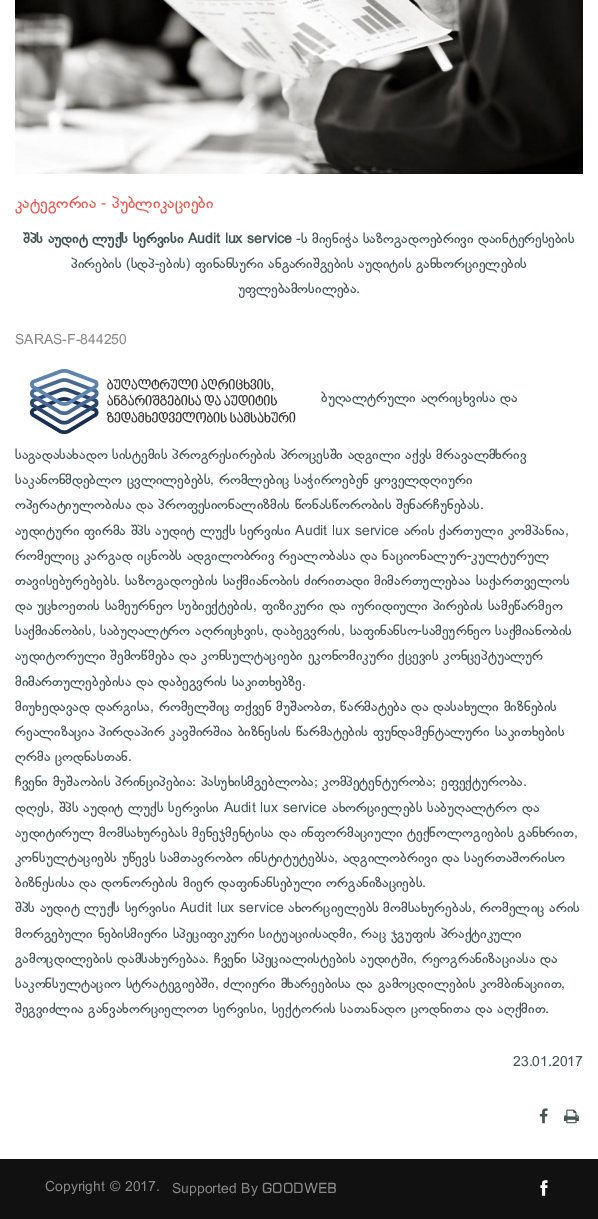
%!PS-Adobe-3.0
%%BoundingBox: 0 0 598 1219
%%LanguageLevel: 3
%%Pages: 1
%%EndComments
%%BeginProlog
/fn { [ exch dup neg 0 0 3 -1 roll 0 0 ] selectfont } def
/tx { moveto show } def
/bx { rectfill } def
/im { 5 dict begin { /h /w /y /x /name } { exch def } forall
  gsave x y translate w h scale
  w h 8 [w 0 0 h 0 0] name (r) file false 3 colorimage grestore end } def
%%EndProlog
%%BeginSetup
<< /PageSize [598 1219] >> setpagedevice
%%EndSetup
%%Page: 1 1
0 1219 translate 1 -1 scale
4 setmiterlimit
1 setgray
0 0 598 1219 bx
(image0.raw) 15 0 568 174 im
/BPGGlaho-Regular 16 fn
0.949 0.337 0.302 setrgbcolor
(კატეგორია - პუბლიკაციები) 15 208 tx
/BPGGlaho-Bold 14 fn
0.267 0.333 0.333 setrgbcolor
(შპს აუდიტ ლუქს სერვისი Audit lux service) 23 243 tx
/BPGGlaho-Regular 14 fn
(-ს მიენიჭა საზოგადოებრივი დაინტერესების) 296 243 tx
(პირების \(სდპ-ების\) ფინანსური ანგარიშგების აუდიტის განხორციელების) 71 268 tx
(უფლებამოსილება.) 238 293 tx
0.533 setgray
(SARAS-F-844250) 15 344 tx
(image1.raw) 18 368 278 73 im
0.267 0.333 0.333 setrgbcolor
(ბუღალტრული აღრიცხვისა და) 321 402 tx
(საგადასახადო სისტემის პროგრესირების პროცესში ადგილი აქვს მრავალმხრივ) 15 459 tx
(საკანონმდებლო ცვლილებებს, რომლებიც საჭიროებენ ყოველდღიური) 15 484 tx
(ოპერატიულობისა და პროფესიონალიზმის წონასწორობის შენარჩუნებას.) 15 509 tx
(აუდიტური ფირმა შპს აუდიტ ლუქს სერვისი Audit lux service არის ქართული კომპანია,) 15 535 tx
(რომელიც კარგად იცნობს ადგილობრივ რეალობასა და ნაციონალურ-კულტურულ) 15 560 tx
(თავისებურებებს. საზოგადოების საქმიანობის ძირითადი მიმართულებაა საქართველოს) 15 585 tx
(და უცხოეთის სამეურნეო სუბიექტების, ფიზიკური და იურიდიული პირების სამეწარმეო) 15 610 tx
(საქმიანობის, საბუღალტრო აღრიცხვის, დაბეგვრის, საფინანსო-სამეურნეო საქმიანობის) 15 635 tx
(აუდიტორული შემოწმება და კონსულტაციები ეკონომიკური ქცევის კონცეპტუალურ) 15 660 tx
(მიმართულებებისა და დაბეგვრის საკითხებზე.) 15 686 tx
(მიუხედავად დარგისა, რომელშიც თქვენ მუშაობთ, წარმატება და დასახული მიზნების) 15 711 tx
(რეალიზაცია პირდაპირ კავშირშია ბიზნესის წარმატების ფუნდამენტალური საკითხების) 15 736 tx
(ღრმა ცოდნასთან.) 15 761 tx
(ჩვენი მუშაობის პრინციპებია: პასუხისმგებლობა; კომპეტენტურობა; ეფექტურობა.) 15 786 tx
(დღეს, შპს აუდიტ ლუქს სერვისი Audit lux service ახორციელებს საბუღალტრო და) 15 812 tx
(აუდიტირულ მომსახურებას მენეჯმენტისა და ინფორმაციული ტექნოლოგიების განხრით,) 15 837 tx
(კონსულტაციებს უწევს სამთავრობო ინსტიტუტებსა, ადგილობრივი და საერთაშორისო) 15 862 tx
(ბიზნესისა და დონორების მიერ დაფინანსებული ორგანიზაციებს.) 15 887 tx
(შპს აუდიტ ლუქს სერვისი Audit lux service ახორციელებს მომსახურებას, რომელიც არის) 15 912 tx
(მორგებული ნებისმიერი სპეციფიკური სიტუაციისადმი, რაც ჯგუფის პრაქტიკული) 15 938 tx
(გამოცდილების დამსახურებაა. ჩვენი სპეციალისტების აუდიტში, რეოგრანიზაციასა და) 15 963 tx
(საკონსულტაციო სტრატეგიებში, ძლიერი მხარეებისა და გამოცდილების კომბინაციით,) 15 988 tx
(შეგვიძლია განვახორციელოთ სერვისი, სექტორის სათანადო ცოდნითა და აღქმით.) 15 1013 tx
(23.01.2017) 513 1066 tx
(image2.raw) 539 1108 9 16 im
(image3.raw) 564 1109 15 15 im
0.067 setgray
0 1159 598 60 bx
0.533 setgray
(Copyright © 2017.) 45 1191 tx
(Supported By) 172 1193 tx
/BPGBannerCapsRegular-Regular 14 fn
(GOODWEB) 262 1193 tx
(image4.raw) 540 1180 8 16 im
showpage
%%EOF
